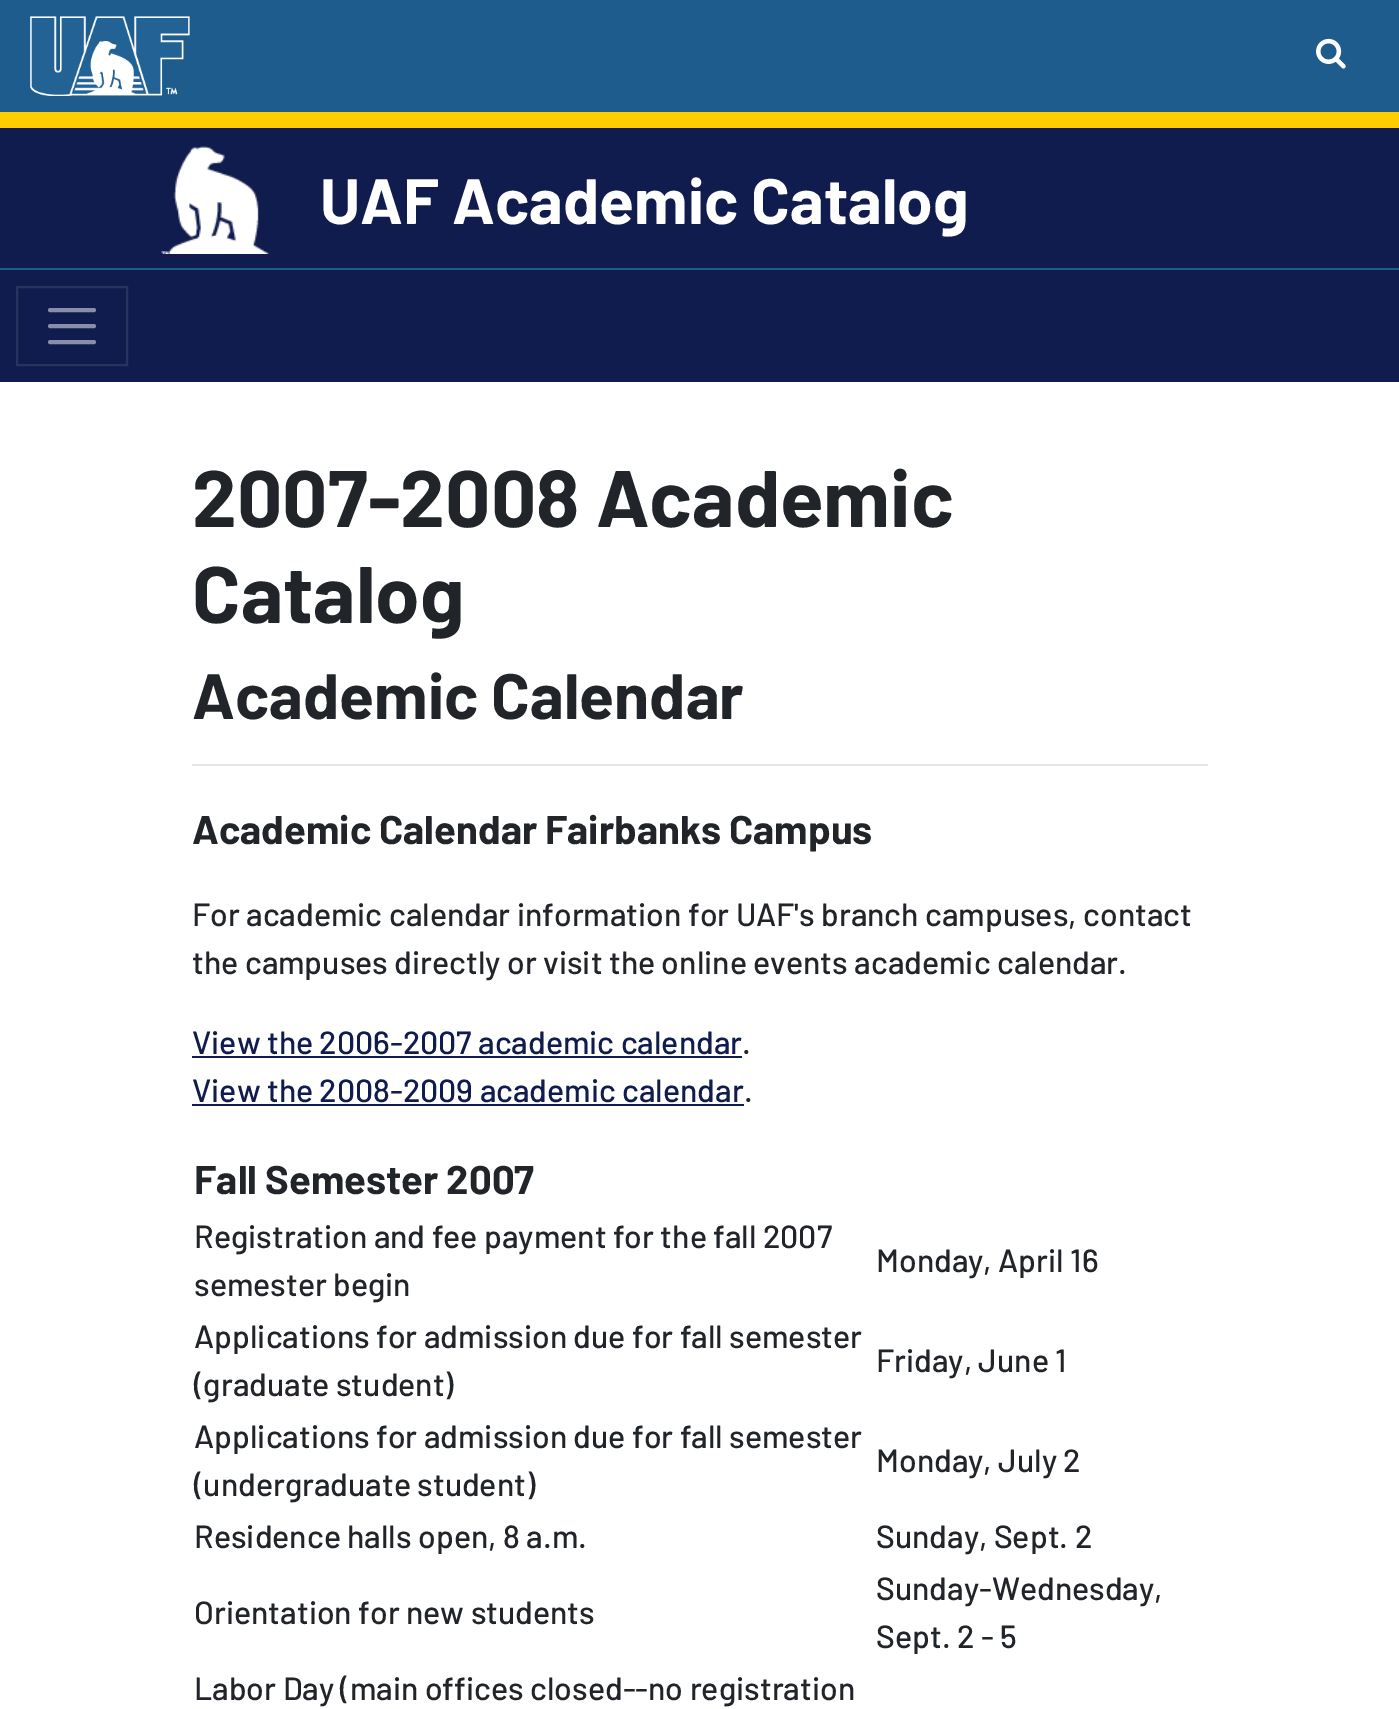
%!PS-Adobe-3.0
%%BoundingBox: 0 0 1399 1709
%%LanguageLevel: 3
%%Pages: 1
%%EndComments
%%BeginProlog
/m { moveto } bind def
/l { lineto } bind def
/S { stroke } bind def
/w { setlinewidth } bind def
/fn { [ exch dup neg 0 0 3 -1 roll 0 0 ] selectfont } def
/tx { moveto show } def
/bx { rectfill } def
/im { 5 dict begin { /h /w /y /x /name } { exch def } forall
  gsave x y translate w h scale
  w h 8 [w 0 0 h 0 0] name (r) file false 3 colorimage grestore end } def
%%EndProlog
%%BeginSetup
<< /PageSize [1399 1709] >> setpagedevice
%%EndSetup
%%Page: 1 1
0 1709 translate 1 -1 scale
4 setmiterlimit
1 setgray
0 0 1399 1709 bx
0.118 0.361 0.553 setrgbcolor
0 0 1399 112 bx
(image0.raw) 30 16 160 80 im
(image1.raw) 1316 38 30 31 im
0.067 0.11 0.306 setrgbcolor
0 128 1399 140 bx
1 0.804 0 setrgbcolor
0 112 1399 16 bx
(image2.raw) 161 146 109 108 im
/Barlow-Bold 64 fn
1 setgray
(UAF Academic Catalog) 320 224 tx
0.067 0.11 0.306 setrgbcolor
0 270 1399 112 bx
0.118 0.361 0.553 setrgbcolor
0 268 1399 2 bx
0.161 0.2 0.376 setrgbcolor
2 w
17 287 110 78 rectstroke
0.533 0.557 0.655 setrgbcolor
4 w
1 setlinecap
50 310 m 94 310 l 50 326 m 94 326 l 50 342 m 94 342 l S
/Barlow-Bold 80 fn
0.129 0.145 0.161 setrgbcolor
(2007-2008 Academic) 192 527 tx
(Catalog) 192 623 tx
/Barlow-Bold 64 fn
(Academic Calendar) 192 719 tx
0.902 setgray
192 764 1016 2 bx
/Barlow-Bold 40 fn
0.129 0.145 0.161 setrgbcolor
(Academic Calendar Fairbanks Campus) 192 844 tx
/Barlow-Medium 32 fn
(For academic calendar information for UAF's branch campuses, contact) 192 926 tx
(the campuses directly or visit the online events academic calendar.) 192 974 tx
0.067 0.11 0.306 setrgbcolor
(View the 2006-2007 academic calendar) 192 1054 tx
192 1056 550 2 bx
0.129 0.145 0.161 setrgbcolor
(.) 742 1054 tx
0.067 0.11 0.306 setrgbcolor
(View the 2008-2009 academic calendar) 192 1102 tx
192 1104 552 2 bx
0.129 0.145 0.161 setrgbcolor
(.) 744 1102 tx
/Barlow-Bold 40 fn
(Fall Semester 2007) 194 1194 tx
/Barlow-Medium 32 fn
(Registration and fee payment for the fall 2007) 194 1248 tx
(semester begin) 194 1296 tx
(Monday, April 16) 876 1272 tx
(Applications for admission due for fall semester) 194 1348 tx
(\(graduate student\)) 194 1396 tx
(Friday, June 1) 876 1372 tx
(Applications for admission due for fall semester) 194 1448 tx
(\(undergraduate student\)) 194 1496 tx
(Monday, July 2) 876 1472 tx
(Residence halls open, 8 a.m.) 194 1548 tx
(Sunday, Sept. 2) 876 1548 tx
(Orientation for new students) 194 1624 tx
(Sunday-Wednesday,) 876 1600 tx
(Sept. 2 - 5) 876 1648 tx
(Labor Day \(main offices closed--no registration) 194 1700 tx
showpage
%%EOF
